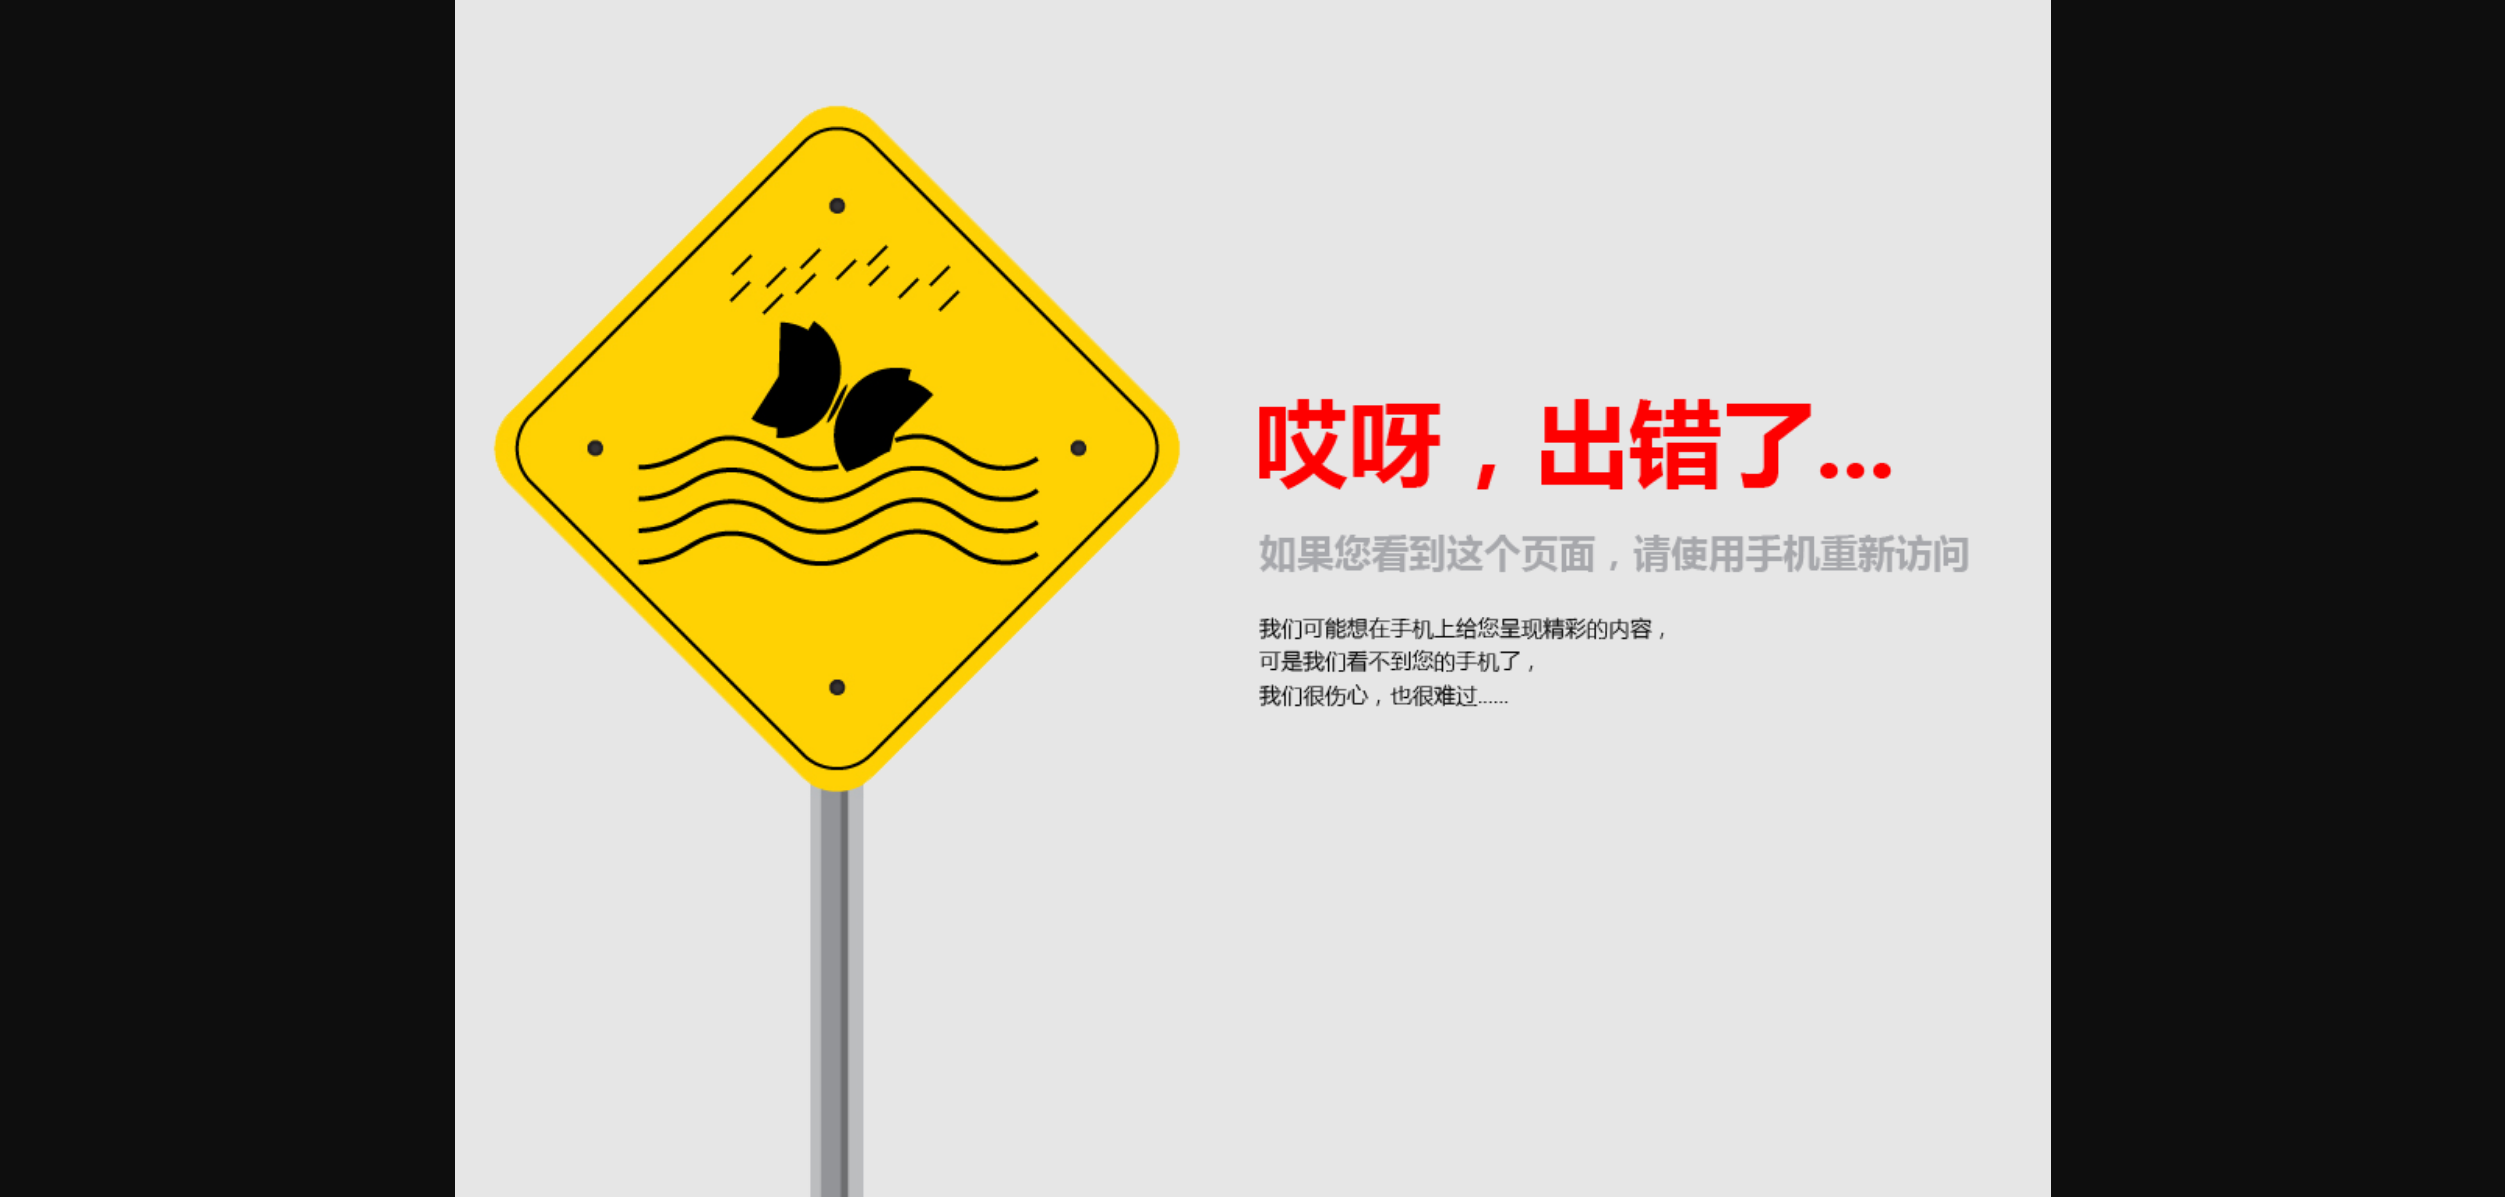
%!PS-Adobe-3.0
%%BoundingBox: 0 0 2505 1197
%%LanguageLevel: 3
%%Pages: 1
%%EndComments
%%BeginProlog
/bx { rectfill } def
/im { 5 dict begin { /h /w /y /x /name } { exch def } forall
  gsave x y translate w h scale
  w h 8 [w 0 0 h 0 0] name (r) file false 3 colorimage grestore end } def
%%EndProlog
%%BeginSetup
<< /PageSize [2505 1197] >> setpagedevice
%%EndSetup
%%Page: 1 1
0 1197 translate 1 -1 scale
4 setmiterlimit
0.055 setgray
0 0 2505 1197 bx
0.902 setgray
455 0 1596 1197 bx
(image0.raw) 493 105 1476 1092 im
showpage
%%EOF
